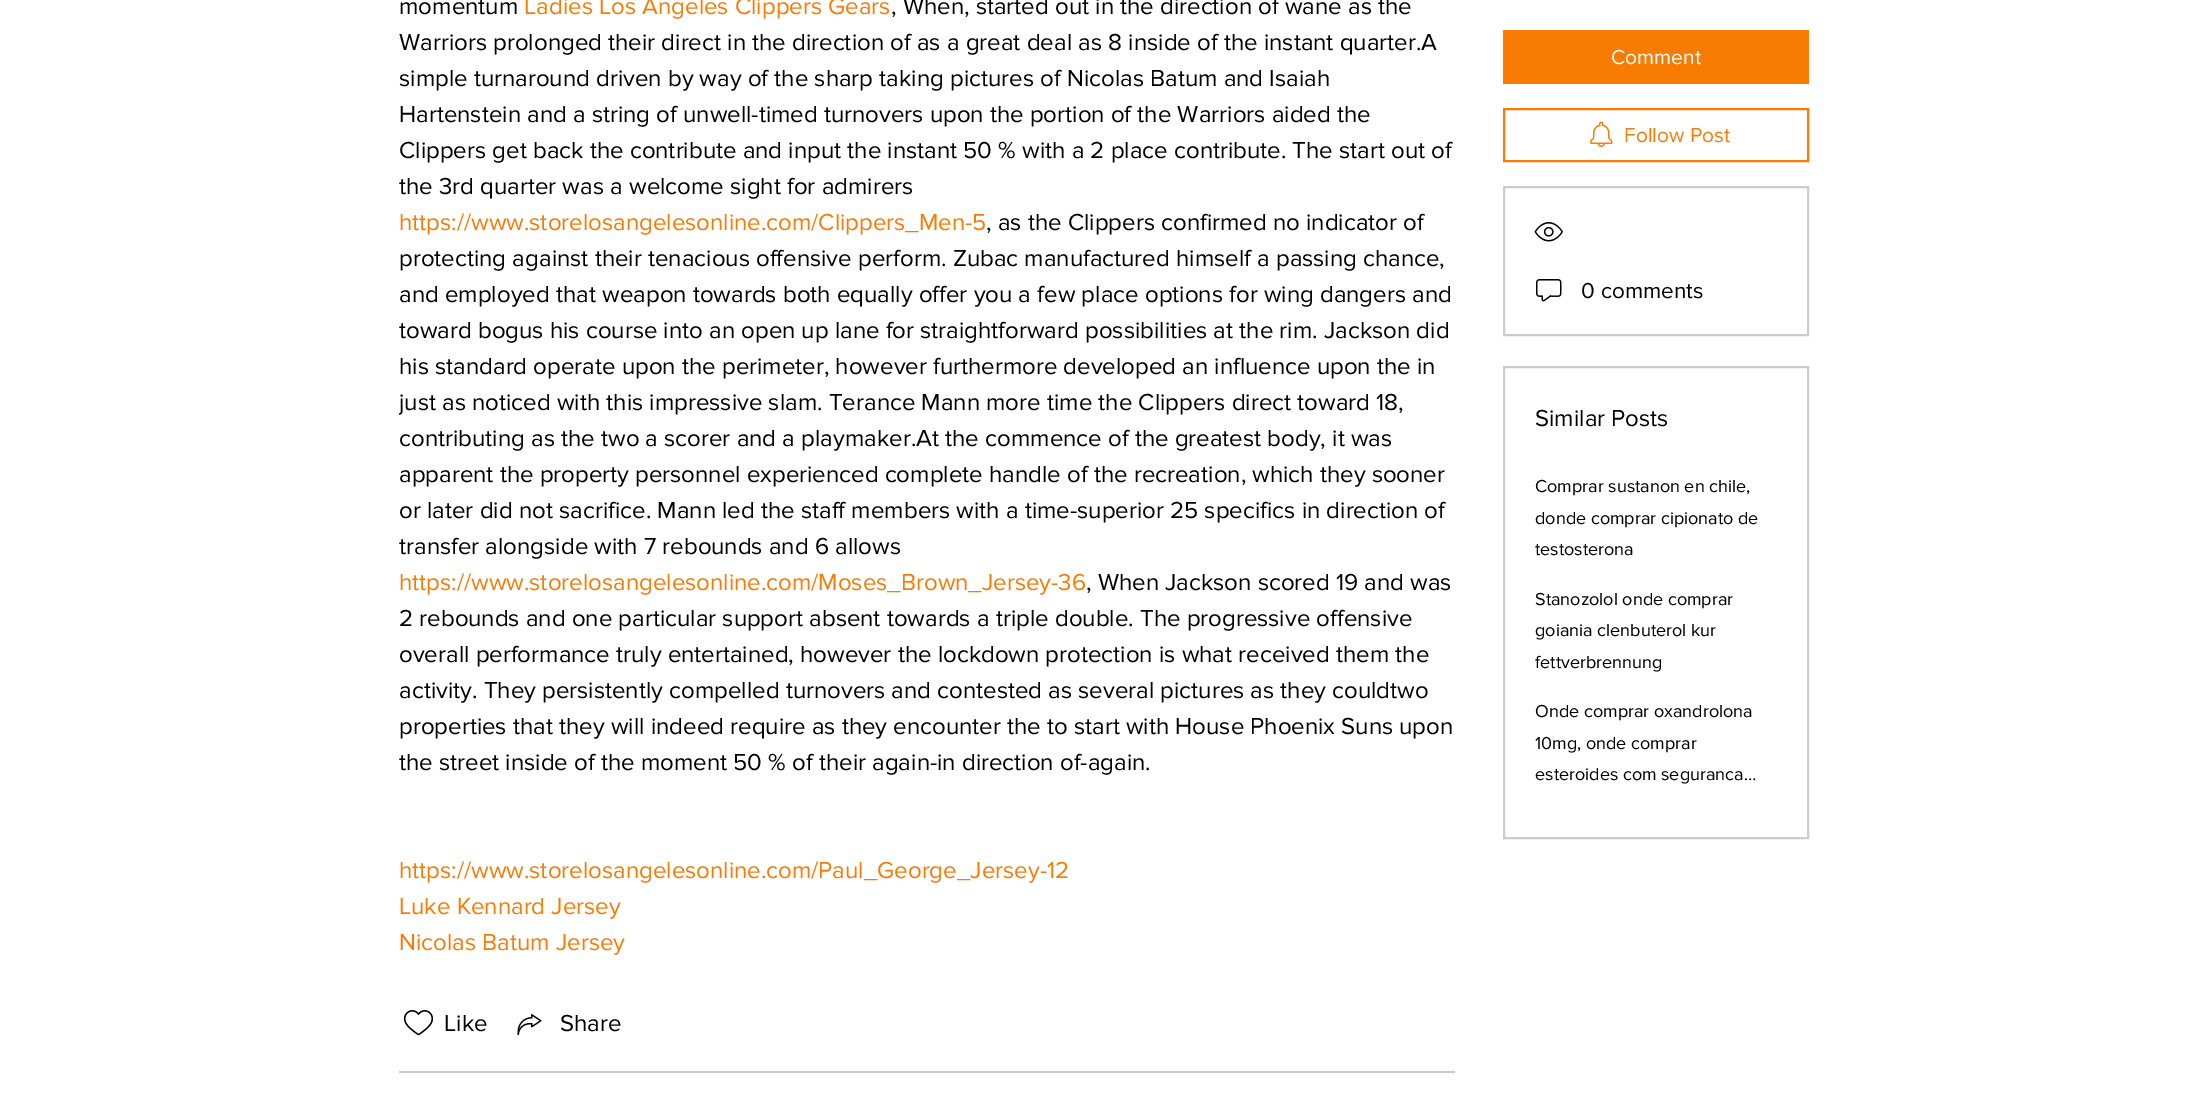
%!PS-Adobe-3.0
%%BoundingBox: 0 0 2207 1114
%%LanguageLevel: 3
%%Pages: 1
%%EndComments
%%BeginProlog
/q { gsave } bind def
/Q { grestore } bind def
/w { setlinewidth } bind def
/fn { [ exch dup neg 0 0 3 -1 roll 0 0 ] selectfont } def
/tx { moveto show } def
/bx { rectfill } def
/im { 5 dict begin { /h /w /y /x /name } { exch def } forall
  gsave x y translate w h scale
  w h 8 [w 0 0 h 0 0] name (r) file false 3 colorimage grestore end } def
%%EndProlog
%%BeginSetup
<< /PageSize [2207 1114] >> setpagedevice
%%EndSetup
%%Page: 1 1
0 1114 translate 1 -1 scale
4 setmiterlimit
1 setgray
0 0 2207 1114 bx
/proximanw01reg-Regular 24 fn
0 setgray
(momentum) 399 14 tx
0.973 0.482 0.016 setrgbcolor
(Ladies Los Angeles Clippers Gears) 524 14 tx
0 setgray
(, When, started out in the direction of wane as the) 891 14 tx
(Warriors prolonged their direct in the direction of as a great deal as 8 inside of the instant quarter.A) 399 50 tx
(simple turnaround driven by way of the sharp taking pictures of Nicolas Batum and Isaiah) 399 86 tx
(Hartenstein and a string of unwell-timed turnovers upon the portion of the Warriors aided the) 399 122 tx
(Clippers get back the contribute and input the instant 50 % with a 2 place contribute. The start out of) 399 158 tx
(the 3rd quarter was a welcome sight for admirers) 399 194 tx
0.973 0.482 0.016 setrgbcolor
(https://www.storelosangelesonline.com/Clippers_Men-5) 399 230 tx
0 setgray
(, as the Clippers confirmed no indicator of) 986 230 tx
(protecting against their tenacious offensive perform. Zubac manufactured himself a passing chance,) 399 266 tx
(and employed that weapon towards both equally offer you a few place options for wing dangers and) 399 302 tx
(toward bogus his course into an open up lane for straightforward possibilities at the rim. Jackson did) 399 338 tx
(his standard operate upon the perimeter, however furthermore developed an influence upon the in) 399 374 tx
q
399 0 1056 960 rectclip
(just as noticed with this impressive slam. Terance Mann more time the Clippers direct toward 18,) 399 410 tx
Q
(contributing as the two a scorer and a playmaker.At the commence of the greatest body, it was) 399 446 tx
(apparent the property personnel experienced complete handle of the recreation, which they sooner) 399 482 tx
(or later did not sacrifice. Mann led the staff members with a time-superior 25 specifics in direction of) 399 518 tx
(transfer alongside with 7 rebounds and 6 allows) 399 554 tx
0.973 0.482 0.016 setrgbcolor
(https://www.storelosangelesonline.com/Moses_Brown_Jersey-36) 399 590 tx
0 setgray
(, When Jackson scored 19 and was) 1086 590 tx
(2 rebounds and one particular support absent towards a triple double. The progressive offensive) 399 626 tx
(overall performance truly entertained, however the lockdown protection is what received them the) 399 662 tx
(activity. They persistently compelled turnovers and contested as several pictures as they couldtwo) 399 698 tx
(properties that they will indeed require as they encounter the to start with House Phoenix Suns upon) 399 734 tx
(the street inside of the moment 50 % of their again-in direction of-again.) 399 770 tx
0.973 0.482 0.016 setrgbcolor
(https://www.storelosangelesonline.com/Paul_George_Jersey-12) 399 878 tx
(Luke Kennard Jersey) 399 914 tx
(Nicolas Batum Jersey) 399 950 tx
(image0.raw) 403 1010 31 26 im
0 setgray
(Like) 444 1031 tx
(image1.raw) 517 1014 25 21 im
(Share) 560 1031 tx
0.8 setgray
399 1071 1056 2 bx
0.973 0.482 0.016 setrgbcolor
1503 30 306 54 bx
/proximanw01reg-Regular 21 fn
1 setgray
(Comment) 1611 64 tx
0.973 0.482 0.016 setrgbcolor
2 w
1504 109 304 52 rectstroke
(image2.raw) 1590 121 23 26 im
(Follow Post) 1624 142 tx
0.8 setgray
1504 187 304 148 rectstroke
(image3.raw) 1534 222 29 20 im
(image4.raw) 1536 279 26 23 im
/proximanw01reg-Regular 22.5 fn
0 setgray
(0 comments) 1581 298 tx
0.8 setgray
1504 367 304 471 rectstroke
/proximanw01reg-Regular 24 fn
0 setgray
(Similar Posts) 1535 426 tx
/proximanw01reg-Regular 18 fn
(Comprar sustanon en chile,) 1535 492 tx
(donde comprar cipionato de) 1535 524 tx
(testosterona) 1535 555 tx
(Stanozolol onde comprar) 1535 605 tx
(goiania clenbuterol kur) 1535 636 tx
(fettverbrennung) 1535 668 tx
(Onde comprar oxandrolona) 1535 717 tx
(10mg, onde comprar) 1535 749 tx
(esteroides com seguranca…) 1535 780 tx
showpage
%%EOF
